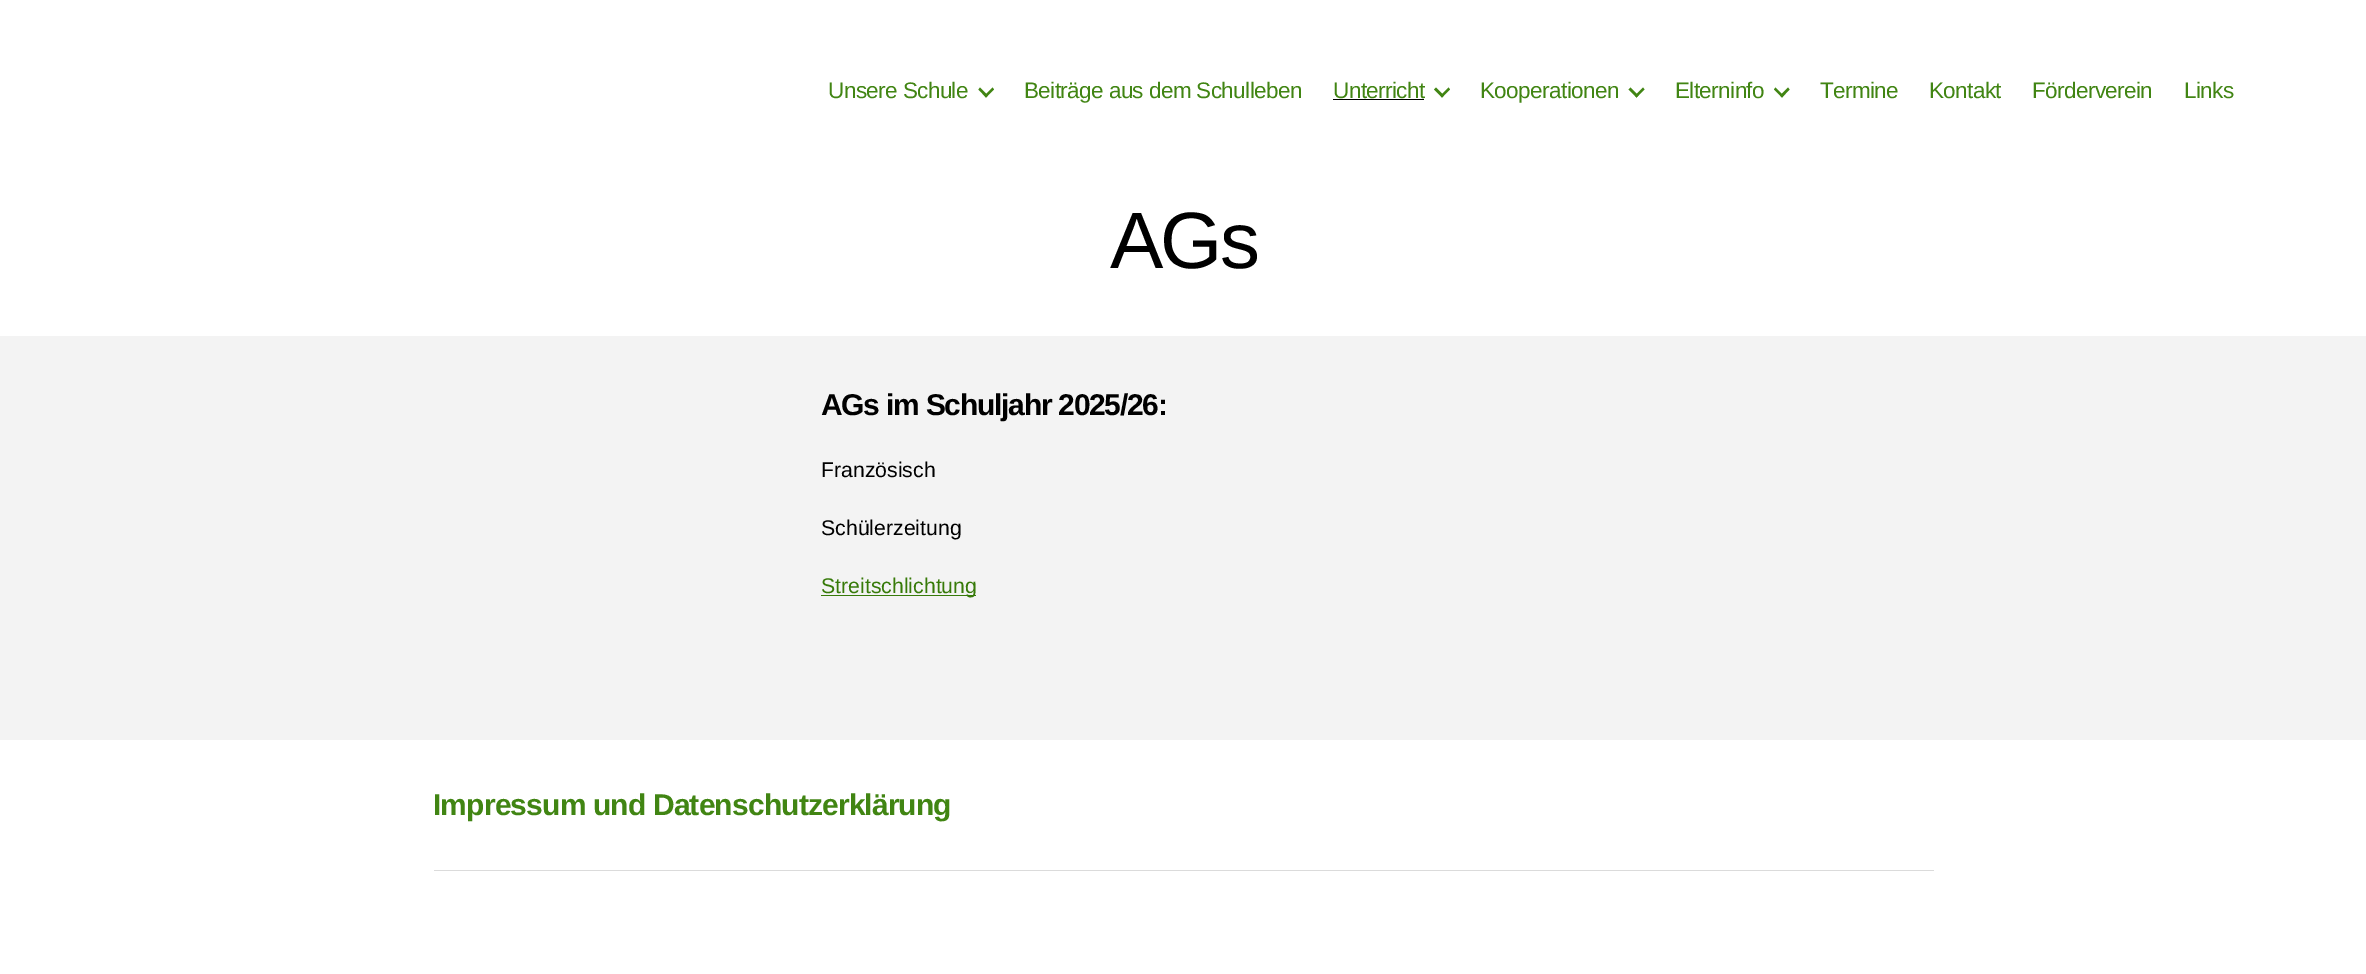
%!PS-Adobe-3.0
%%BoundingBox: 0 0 2366 974
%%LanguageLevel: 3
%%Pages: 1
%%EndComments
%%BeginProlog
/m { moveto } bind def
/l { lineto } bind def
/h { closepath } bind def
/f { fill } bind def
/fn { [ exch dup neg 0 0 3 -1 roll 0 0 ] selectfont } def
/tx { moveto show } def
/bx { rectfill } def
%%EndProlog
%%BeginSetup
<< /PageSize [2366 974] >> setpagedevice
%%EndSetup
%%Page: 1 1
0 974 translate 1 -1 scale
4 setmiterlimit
0.953 setgray
0 0 2366 974 bx
1 setgray
0 0 2366 336 bx
/LiberationSans-Regular 22.5 fn
0.255 0.522 0.075 setrgbcolor
828 98 m -0.6 0 (Unsere Schule) ashow
978.5 89.5 m 980 87.5 l 988 95.5 l 986 97.5 l h f
984.5 95.5 m 992.5 87.5 l 994 89.5 l 986 97.5 l h f
1024 98 m -0.6 0 (Beiträge aus dem Schulleben) ashow
1333 98 m -0.6 0 (Unterricht) ashow
0 setgray
1333 99 91 1 bx
0.255 0.522 0.075 setrgbcolor
1434 89.5 m 1436 87.5 l 1444 95.5 l 1442 97.5 l h f
1440.5 95.5 m 1448.5 87.5 l 1450 89.5 l 1442 97.5 l h f
1480 98 m -0.6 0 (Kooperationen) ashow
1628.5 89.5 m 1630.5 87.5 l 1638.5 95.5 l 1636.5 97.5 l h f
1635 95.5 m 1643 87.5 l 1644.5 89.5 l 1636.5 97.5 l h f
1675 98 m -0.6 0 (Elterninfo) ashow
1774 89.5 m 1775.5 87.5 l 1783.5 95.5 l 1782 97.5 l h f
1780 95.5 m 1788 87.5 l 1789.5 89.5 l 1782 97.5 l h f
1820 98 m -0.6 0 (Termine) ashow
1929 98 m -0.6 0 (Kontakt) ashow
2032 98 m -0.6 0 (Förderverein) ashow
2184 98 m -0.6 0 (Links) ashow
/LiberationSans-Regular 80 fn
0 setgray
1110 268 m -3 0 (AGs) ashow
/LiberationSans-Bold 30 fn
821 415 m -1.25 0 (AGs im Schuljahr 2025/26:) ashow
/LiberationSans-Regular 21.25 fn
(Französisch) 821 477 tx
(Schülerzeitung) 821 535 tx
0.216 0.478 0.035 setrgbcolor
821 595 155 1 bx
(Streitschlichtung) 821 593 tx
1 setgray
0 740 2366 234 bx
0.859 setgray
434 870 1500 1 bx
/LiberationSans-Bold 30 fn
0.255 0.522 0.075 setrgbcolor
433 815 m -0.85 0 (Impressum und Datenschutzerklärung) ashow
showpage
%%EOF
